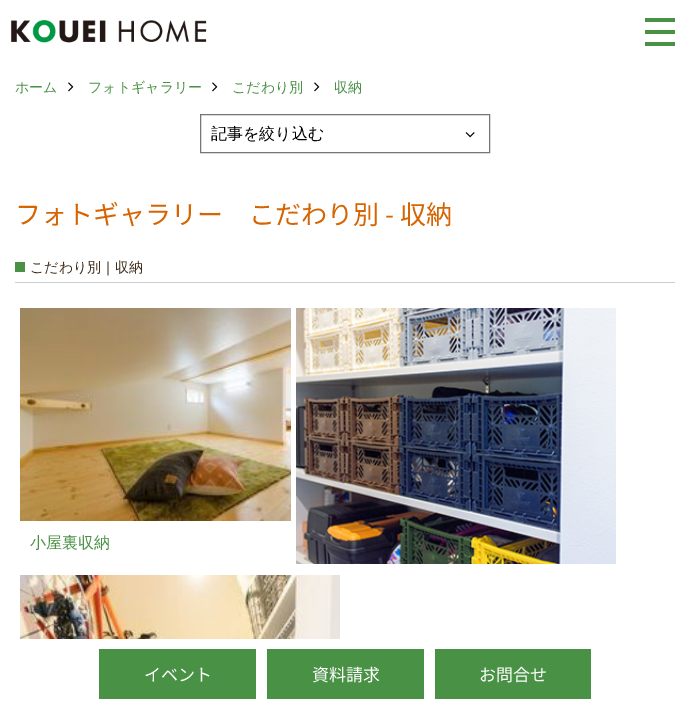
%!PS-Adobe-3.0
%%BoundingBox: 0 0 690 709
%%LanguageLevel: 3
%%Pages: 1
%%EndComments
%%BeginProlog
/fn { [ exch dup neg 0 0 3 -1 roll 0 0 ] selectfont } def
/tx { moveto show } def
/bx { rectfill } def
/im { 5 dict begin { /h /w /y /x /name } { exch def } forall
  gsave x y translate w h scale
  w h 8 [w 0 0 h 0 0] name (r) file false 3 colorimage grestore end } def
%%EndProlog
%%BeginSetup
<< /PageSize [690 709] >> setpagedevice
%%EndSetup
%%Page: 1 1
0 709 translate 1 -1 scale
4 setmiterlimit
1 setgray
0 0 690 709 bx
(image0.raw) 10 20 197 23 im
0.286 0.569 0.271 setrgbcolor
645 18 30 4 bx
645 30 30 4 bx
645 42 30 4 bx
/WenQuanYiZenHei-Medium 14 fn
(ホーム) 15 92 tx
(image1.raw) 68 82 6 10 im
(フォトギャラリー) 88 92 tx
(image1.raw) 212 82 6 10 im
(こだわり別) 232 92 tx
(image1.raw) 314 82 6 10 im
(収納) 334 92 tx
(image2.raw) 465 132 10 6 im
0.463 setgray
200.5 114.5 289 38 rectstroke
/WenQuanYiZenHei-Medium 16 fn
0 setgray
(記事を絞り込む) 211 139 tx
/NotoSansJP-Thin 26 fn
0.839 0.392 0 setrgbcolor
(フォトギャラリー　こだわり別 - 収納) 15 224 tx
0.8 0.804 0.804 setrgbcolor
15 282 660 1 bx
0.286 0.569 0.271 setrgbcolor
15 262 10 10 bx
/WenQuanYiZenHei-Medium 14 fn
0.251 0.18 0.114 setrgbcolor
(こだわり別｜収納) 30 272 tx
(image3.raw) 20 308 271 213 im
/WenQuanYiZenHei-Medium 16 fn
0.286 0.569 0.271 setrgbcolor
(小屋裏収納) 30 548 tx
(image4.raw) 296 308 320 256 im
(image5.raw) 20 575 320 64 im
99 649 157 50 bx
/NotoSansJP-Thin 17 fn
1 setgray
(イベント) 144 681 tx
0.286 0.569 0.271 setrgbcolor
267 649 157 50 bx
1 setgray
(資料請求) 312 681 tx
0.286 0.569 0.271 setrgbcolor
435 649 156 50 bx
1 setgray
(お問合せ) 479 681 tx
showpage
%%EOF
